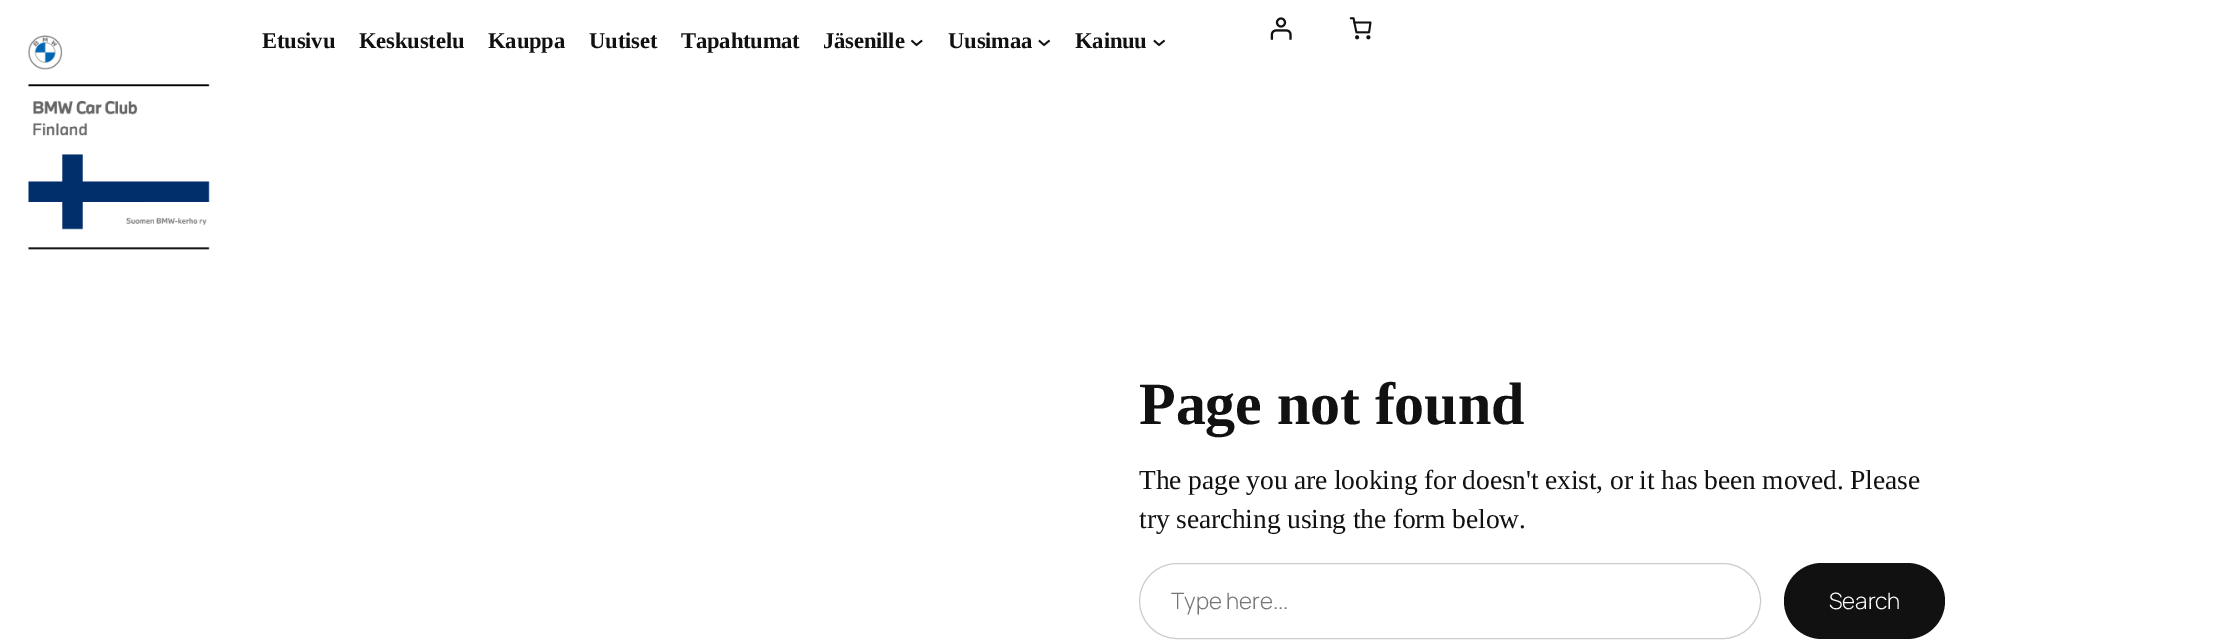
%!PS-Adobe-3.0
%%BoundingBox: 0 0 2214 642
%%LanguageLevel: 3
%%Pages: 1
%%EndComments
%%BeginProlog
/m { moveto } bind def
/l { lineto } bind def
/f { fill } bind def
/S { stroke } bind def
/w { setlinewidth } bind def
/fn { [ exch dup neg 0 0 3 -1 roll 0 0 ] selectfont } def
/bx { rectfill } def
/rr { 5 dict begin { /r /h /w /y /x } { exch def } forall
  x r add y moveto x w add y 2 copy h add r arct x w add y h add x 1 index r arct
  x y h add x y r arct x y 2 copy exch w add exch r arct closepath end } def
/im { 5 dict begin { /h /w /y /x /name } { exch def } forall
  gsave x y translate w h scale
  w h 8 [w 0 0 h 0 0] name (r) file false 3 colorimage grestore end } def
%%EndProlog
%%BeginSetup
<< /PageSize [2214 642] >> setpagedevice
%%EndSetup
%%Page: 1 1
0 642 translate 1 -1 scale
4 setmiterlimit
1 setgray
0 0 2214 642 bx
(image0.raw) 1270 17 22 23 im
(image1.raw) 1349 17 23 23 im
(image2.raw) 28 35 182 215 im
/LiberationSerif-Bold 22.5 fn
0.067 setgray
262 48 m -0.12 0 (Etusivu) ashow
359 48 m -0.12 0 (Keskustelu) ashow
488 48 m -0.12 0 (Kauppa) ashow
589 48 m -0.12 0 (Uutiset) ashow
681 48 m -0.12 0 (Tapahtumat) ashow
823 48 m -0.12 0 (Jäsenille) ashow
1.7 w
911.5 40.5 m 916.5 45 l 922 40.5 l S
948 48 m -0.12 0 (Uusimaa) ashow
1039 40.5 m 1044 45 l 1049.5 40.5 l S
1075 48 m -0.12 0 (Kainuu) ashow
1154 40.5 m 1159 45 l 1164.5 40.5 l S
/LiberationSerif-Bold 60 fn
1139 424 m -0.12 0 (Page not found) ashow
/LiberationSerif-Regular 27.5 fn
1139 489 m -0.12 0 (The page you are looking for doesn't exist, or it has been moved. Please) ashow
1139 528 m -0.12 0 (try searching using the form below.) ashow
0.8 setgray
1 w
1139.5 563.5 621 75 37.5 rr S
/Manrope-Light 22.5 fn
0.459 setgray
1171 609 m -0.12 0 (Type here...) ashow
0.067 setgray
1784 563 161 76 38 rr f
1 setgray
1829 609 m -0.12 0 (Search) ashow
showpage
%%EOF
